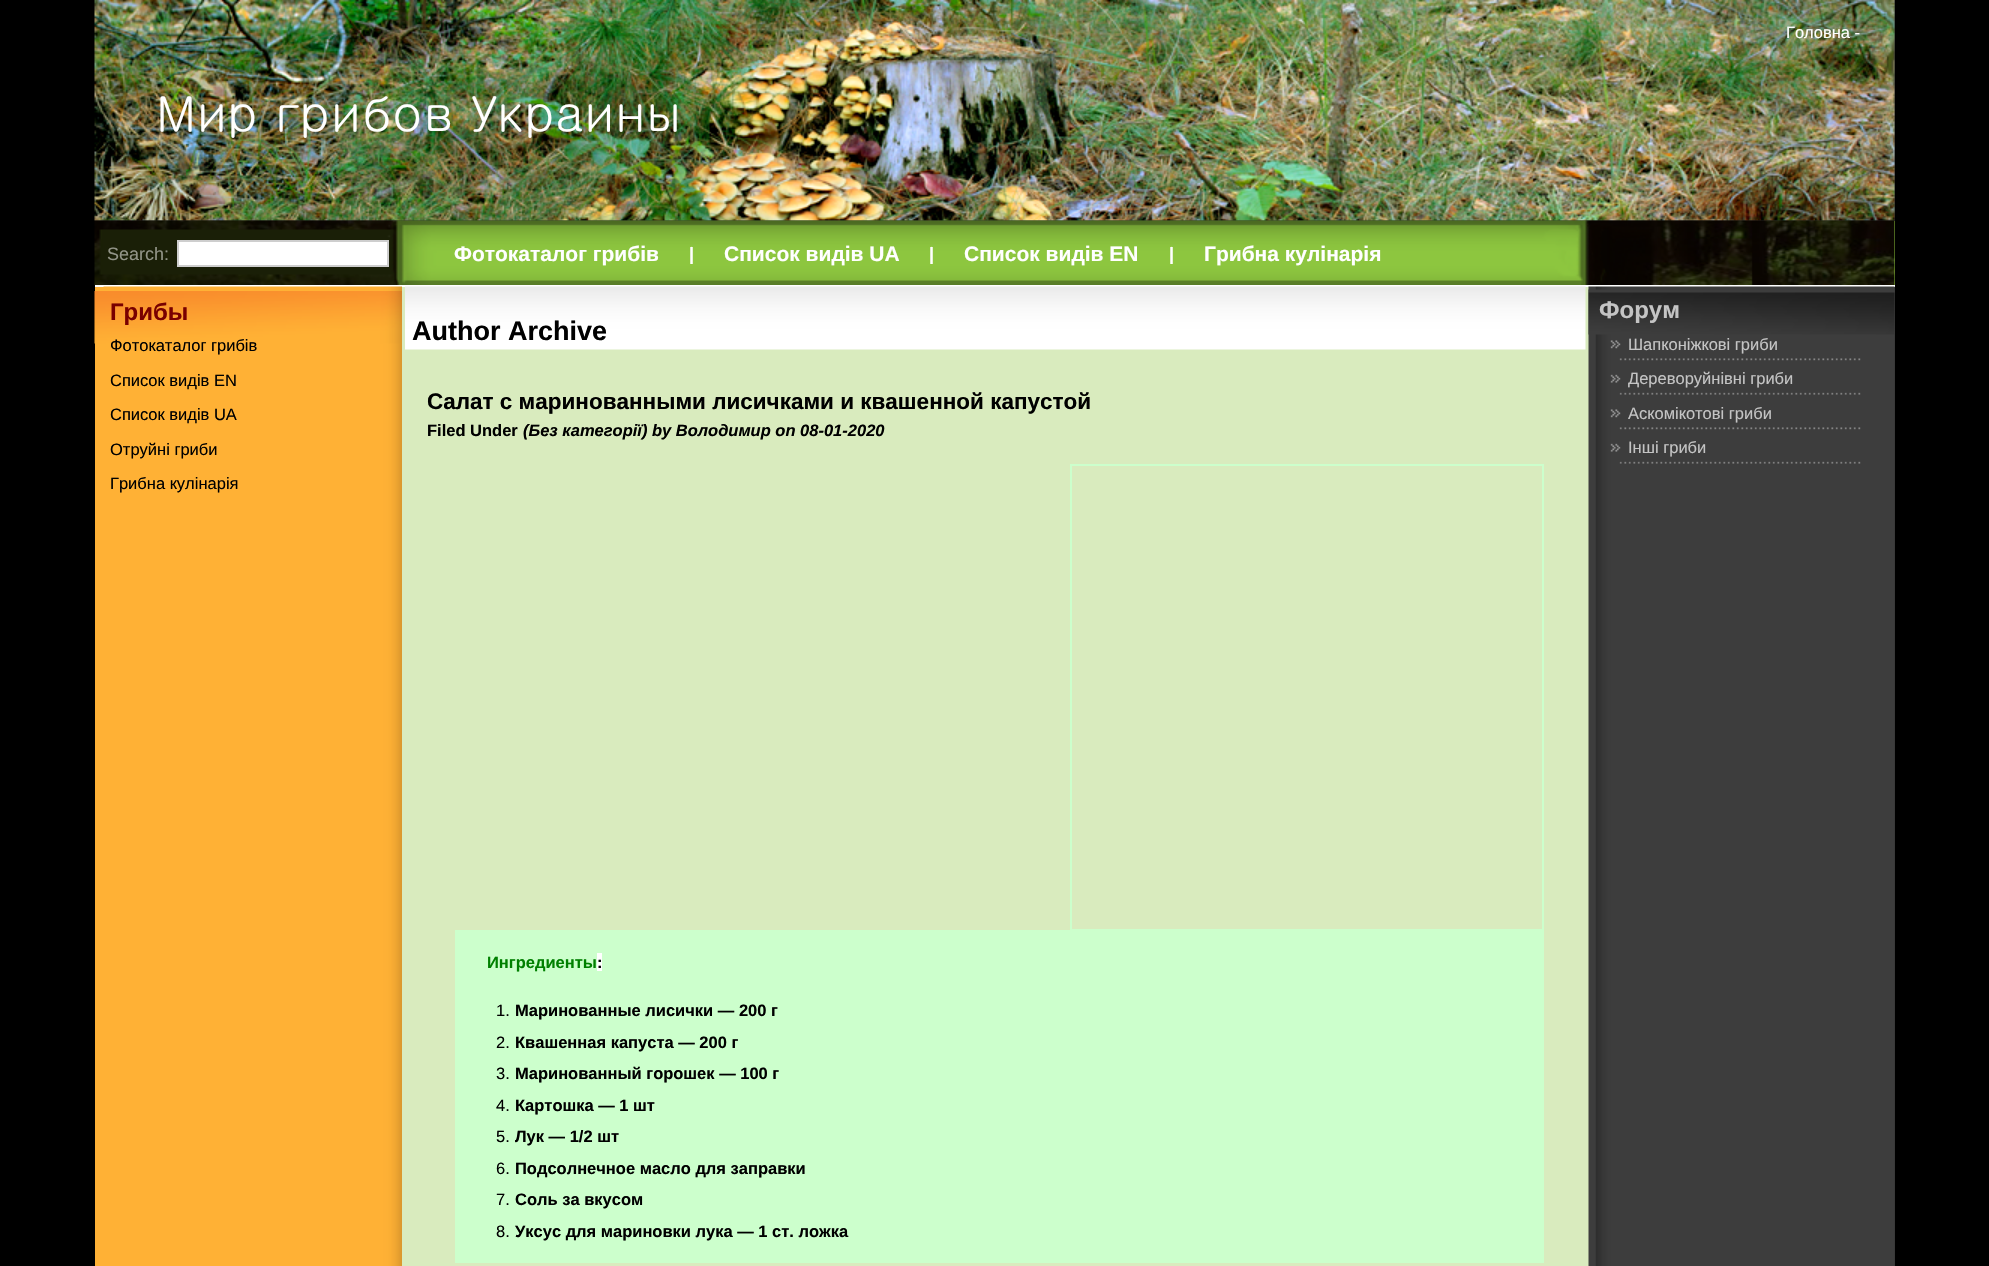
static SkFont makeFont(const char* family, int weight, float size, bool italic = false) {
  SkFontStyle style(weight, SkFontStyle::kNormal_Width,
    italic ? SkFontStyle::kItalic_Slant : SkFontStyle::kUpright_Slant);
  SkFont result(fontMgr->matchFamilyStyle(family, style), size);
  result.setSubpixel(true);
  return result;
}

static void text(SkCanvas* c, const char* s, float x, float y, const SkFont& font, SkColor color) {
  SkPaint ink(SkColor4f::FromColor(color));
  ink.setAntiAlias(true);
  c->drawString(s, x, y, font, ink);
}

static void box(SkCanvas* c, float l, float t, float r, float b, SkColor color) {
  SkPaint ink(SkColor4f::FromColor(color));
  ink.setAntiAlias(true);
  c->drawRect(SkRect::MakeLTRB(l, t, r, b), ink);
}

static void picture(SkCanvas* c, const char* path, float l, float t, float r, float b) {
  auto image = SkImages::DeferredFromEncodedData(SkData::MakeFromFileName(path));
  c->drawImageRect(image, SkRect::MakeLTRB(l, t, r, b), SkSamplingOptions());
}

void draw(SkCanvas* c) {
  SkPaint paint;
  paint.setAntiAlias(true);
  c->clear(0xff000000);
  box(c, 95, 0, 1895, 221, 0xff323232);
  picture(c, "img_01.png", 94, 0, 1895, 221);
  SkFont face1 = makeFont("Liberation Sans", 400, 16.5f);
  text(c, "Головна -", 1786, 38, face1, 0xffffffff);
  SkFont face2 = makeFont("Gulim", 400, 49.5f);
  text(c, "Мир грибов Украины", 155, 131, face2, 0xffffffff);
  box(c, 1894, 221, 1895, 285, 0xff88c239);
  picture(c, "img_02.png", 94, 220, 1895, 285);
  box(c, 95, 285, 1895, 287, 0xffffffff);
  SkFont face3 = makeFont("Liberation Sans", 400, 18);
  text(c, "Search:", 107, 260, face3, 0xff919387);
  paint.setColor(0xffffffff);
  c->drawRect(SkRect::MakeLTRB(178, 241, 388, 266), paint);
  paint.setStyle(SkPaint::kStroke_Style);
  paint.setStrokeWidth(2);
  paint.setColor(0xffcecece);
  c->drawRect(SkRect::MakeLTRB(178, 241, 388, 266), paint);
  SkFont face4 = makeFont("Liberation Sans", 700, 21);
  text(c, "Фотокаталог грибів", 454, 261, face4, 0xffffffff);
  SkFont face5 = makeFont("Liberation Sans", 700, 18);
  text(c, "|", 689, 260, face5, 0xffffffff);
  text(c, "Список видів UA", 724, 261, face4, 0xffffffff);
  text(c, "|", 929, 260, face5, 0xffffffff);
  text(c, "Список видів EN", 964, 261, face4, 0xffffffff);
  text(c, "|", 1169, 260, face5, 0xffffffff);
  text(c, "Грибна кулінарія", 1204, 261, face4, 0xffffffff);
  box(c, 95, 287, 104, 1266, 0xffffb135);
  picture(c, "img_03.png", 103, 286, 402, 1266);
  picture(c, "img_04.png", 94, 291, 402, 344);
  SkFont face6 = makeFont("Liberation Sans", 700, 24);
  text(c, "Грибы", 110, 320, face6, 0xff790000);
  text(c, "Фотокаталог грибів", 110, 351, face1, 0xff000000);
  text(c, "Список видів EN", 110, 386, face1, 0xff000000);
  text(c, "Список видів UA", 110, 420, face1, 0xff000000);
  text(c, "Отруйні гриби", 110, 455, face1, 0xff000000);
  text(c, "Грибна кулінарія", 110, 489, face1, 0xff000000);
  box(c, 402, 287, 1589, 1266, 0xffd9ebbe);
  picture(c, "img_05.png", 405, 286, 1586, 350);
  SkFont face7 = makeFont("Liberation Sans", 700, 27);
  text(c, "Author Archive", 412, 340, face7, 0xff000000);
  SkFont face8 = makeFont("Liberation Sans", 700, 22.5f);
  text(c, "Салат с маринованными лисичками и квашенной капустой", 427, 409, face8, 0xff000000);
  SkFont face9 = makeFont("Liberation Sans", 700, 16.5f);
  text(c, "Filed Under", 427, 436, face9, 0xff000000);
  SkFont face10 = makeFont("Liberation Sans", 700, 16.5f, true);
  text(c, "(Без категорії) by Володимир on 08-01-2020", 523, 436, face10, 0xff000000);
  box(c, 1070, 464, 1544, 466, 0xffccffcc);
  box(c, 1542, 464, 1544, 930, 0xffccffcc);
  box(c, 1070, 929, 1544, 930, 0xffccffcc);
  box(c, 1070, 464, 1072, 930, 0xffccffcc);
  box(c, 455, 930, 1544, 1263, 0xffccffcc);
  text(c, "Ингредиенты", 487, 968, face9, 0xff008000);
  box(c, 597, 953, 602, 971, 0xffffffff);
  text(c, ":", 597, 968, face9, 0xff000000);
  text(c, "1.", 496, 1016, face1, 0xff000000);
  text(c, "Маринованные лисички — 200 г", 515, 1016, face9, 0xff000000);
  text(c, "2.", 496, 1048, face1, 0xff000000);
  text(c, "Квашенная капуста — 200 г", 515, 1048, face9, 0xff000000);
  text(c, "3.", 496, 1079, face1, 0xff000000);
  text(c, "Маринованный горошек — 100 г", 515, 1079, face9, 0xff000000);
  text(c, "4.", 496, 1111, face1, 0xff000000);
  text(c, "Картошка — 1 шт", 515, 1111, face9, 0xff000000);
  text(c, "5.", 496, 1142, face1, 0xff000000);
  text(c, "Лук — 1/2 шт", 515, 1142, face9, 0xff000000);
  text(c, "6.", 496, 1174, face1, 0xff000000);
  text(c, "Подсолнечное масло для заправки", 515, 1174, face9, 0xff000000);
  text(c, "7.", 496, 1205, face1, 0xff000000);
  text(c, "Соль за вкусом", 515, 1205, face9, 0xff000000);
  text(c, "8.", 496, 1237, face1, 0xff000000);
  text(c, "Уксус для мариновки лука — 1 ст. ложка", 515, 1237, face9, 0xff000000);
  box(c, 1894, 287, 1895, 1266, 0xff3d3d3d);
  picture(c, "img_06.png", 1588, 286, 1895, 1266);
  picture(c, "img_07.png", 1588, 289, 1895, 335);
  text(c, "Форум", 1599, 318, face6, 0xffc4c4c4);
  picture(c, "img_08.png", 1619, 358, 1861, 361);
  picture(c, "img_09.png", 1610, 340, 1621, 349);
  text(c, "Шапконіжкові гриби", 1628, 350, face1, 0xffc4c4c4);
  picture(c, "img_10.png", 1619, 392, 1861, 395);
  picture(c, "img_11.png", 1610, 374, 1621, 383);
  text(c, "Дереворуйнівні гриби", 1628, 384, face1, 0xffc4c4c4);
  picture(c, "img_08.png", 1619, 427, 1861, 430);
  picture(c, "img_09.png", 1610, 409, 1621, 418);
  text(c, "Аскомікотові гриби", 1628, 419, face1, 0xffc4c4c4);
  picture(c, "img_10.png", 1619, 461, 1861, 464);
  picture(c, "img_11.png", 1610, 443, 1621, 452);
  text(c, "Інші гриби", 1628, 453, face1, 0xffc4c4c4);
}
